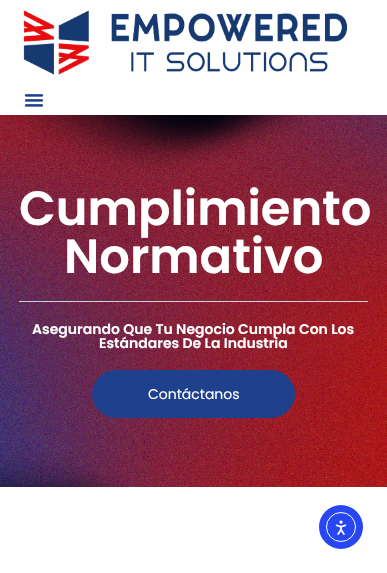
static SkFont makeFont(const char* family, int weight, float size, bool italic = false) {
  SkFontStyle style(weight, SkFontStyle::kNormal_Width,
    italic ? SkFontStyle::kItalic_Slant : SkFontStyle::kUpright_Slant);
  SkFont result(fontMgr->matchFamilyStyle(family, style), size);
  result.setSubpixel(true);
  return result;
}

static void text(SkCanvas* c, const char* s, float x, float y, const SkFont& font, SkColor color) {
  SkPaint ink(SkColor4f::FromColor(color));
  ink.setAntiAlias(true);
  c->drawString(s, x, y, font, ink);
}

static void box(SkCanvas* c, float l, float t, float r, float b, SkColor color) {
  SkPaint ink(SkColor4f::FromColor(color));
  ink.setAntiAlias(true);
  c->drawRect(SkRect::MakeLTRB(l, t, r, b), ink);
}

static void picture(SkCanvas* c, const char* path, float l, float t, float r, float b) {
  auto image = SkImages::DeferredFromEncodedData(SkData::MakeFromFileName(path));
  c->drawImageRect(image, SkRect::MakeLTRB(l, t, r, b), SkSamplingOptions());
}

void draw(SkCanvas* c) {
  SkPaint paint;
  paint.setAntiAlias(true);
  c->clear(0xffffffff);
  picture(c, "img_01.png", 23, 10, 348, 75);
  picture(c, "img_02.png", 24, 94, 44, 107);
  picture(c, "img_03.png", 0, 115, 387, 487);
  SkFont face1 = makeFont("Poppins", 600, 48);
  text(c, "Cumplimiento", 19, 225, face1, 0xffffffff);
  text(c, "Normativo", 64, 273, face1, 0xffffffff);
  box(c, 19, 301, 368, 302, 0xffc8d5dc);
  SkFont face2 = makeFont("Poppins", 600, 14);
  text(c, "Asegurando Que Tu Negocio Cumpla Con Los", 32, 334, face2, 0xffffffff);
  text(c, "Estándares De La Industria", 99, 348, face2, 0xffffffff);
  paint.setColor(0xff1f408c);
  c->drawRoundRect(SkRect::MakeLTRB(92.5f, 370.5f, 294.5f, 417.5f), 23.5f, 23.5f, paint);
  paint.setStyle(SkPaint::kStroke_Style);
  paint.setStrokeWidth(1);
  c->drawRoundRect(SkRect::MakeLTRB(92.5f, 370.5f, 294.5f, 417.5f), 23.5f, 23.5f, paint);
  SkFont face3 = makeFont("Poppins", 400, 14);
  text(c, "Contáctanos", 148, 399, face3, 0xffffffff);
  paint.setStyle(SkPaint::kFill_Style);
  paint.setColor(0xff2847f3);
  c->drawCircle(341, 527, 22, paint);
  paint.setStyle(SkPaint::kStroke_Style);
  paint.setColor(0xffffffff);
  c->drawCircle(341, 527, 14.5f, paint);
  picture(c, "img_04.png", 335, 520, 347, 535);
}
